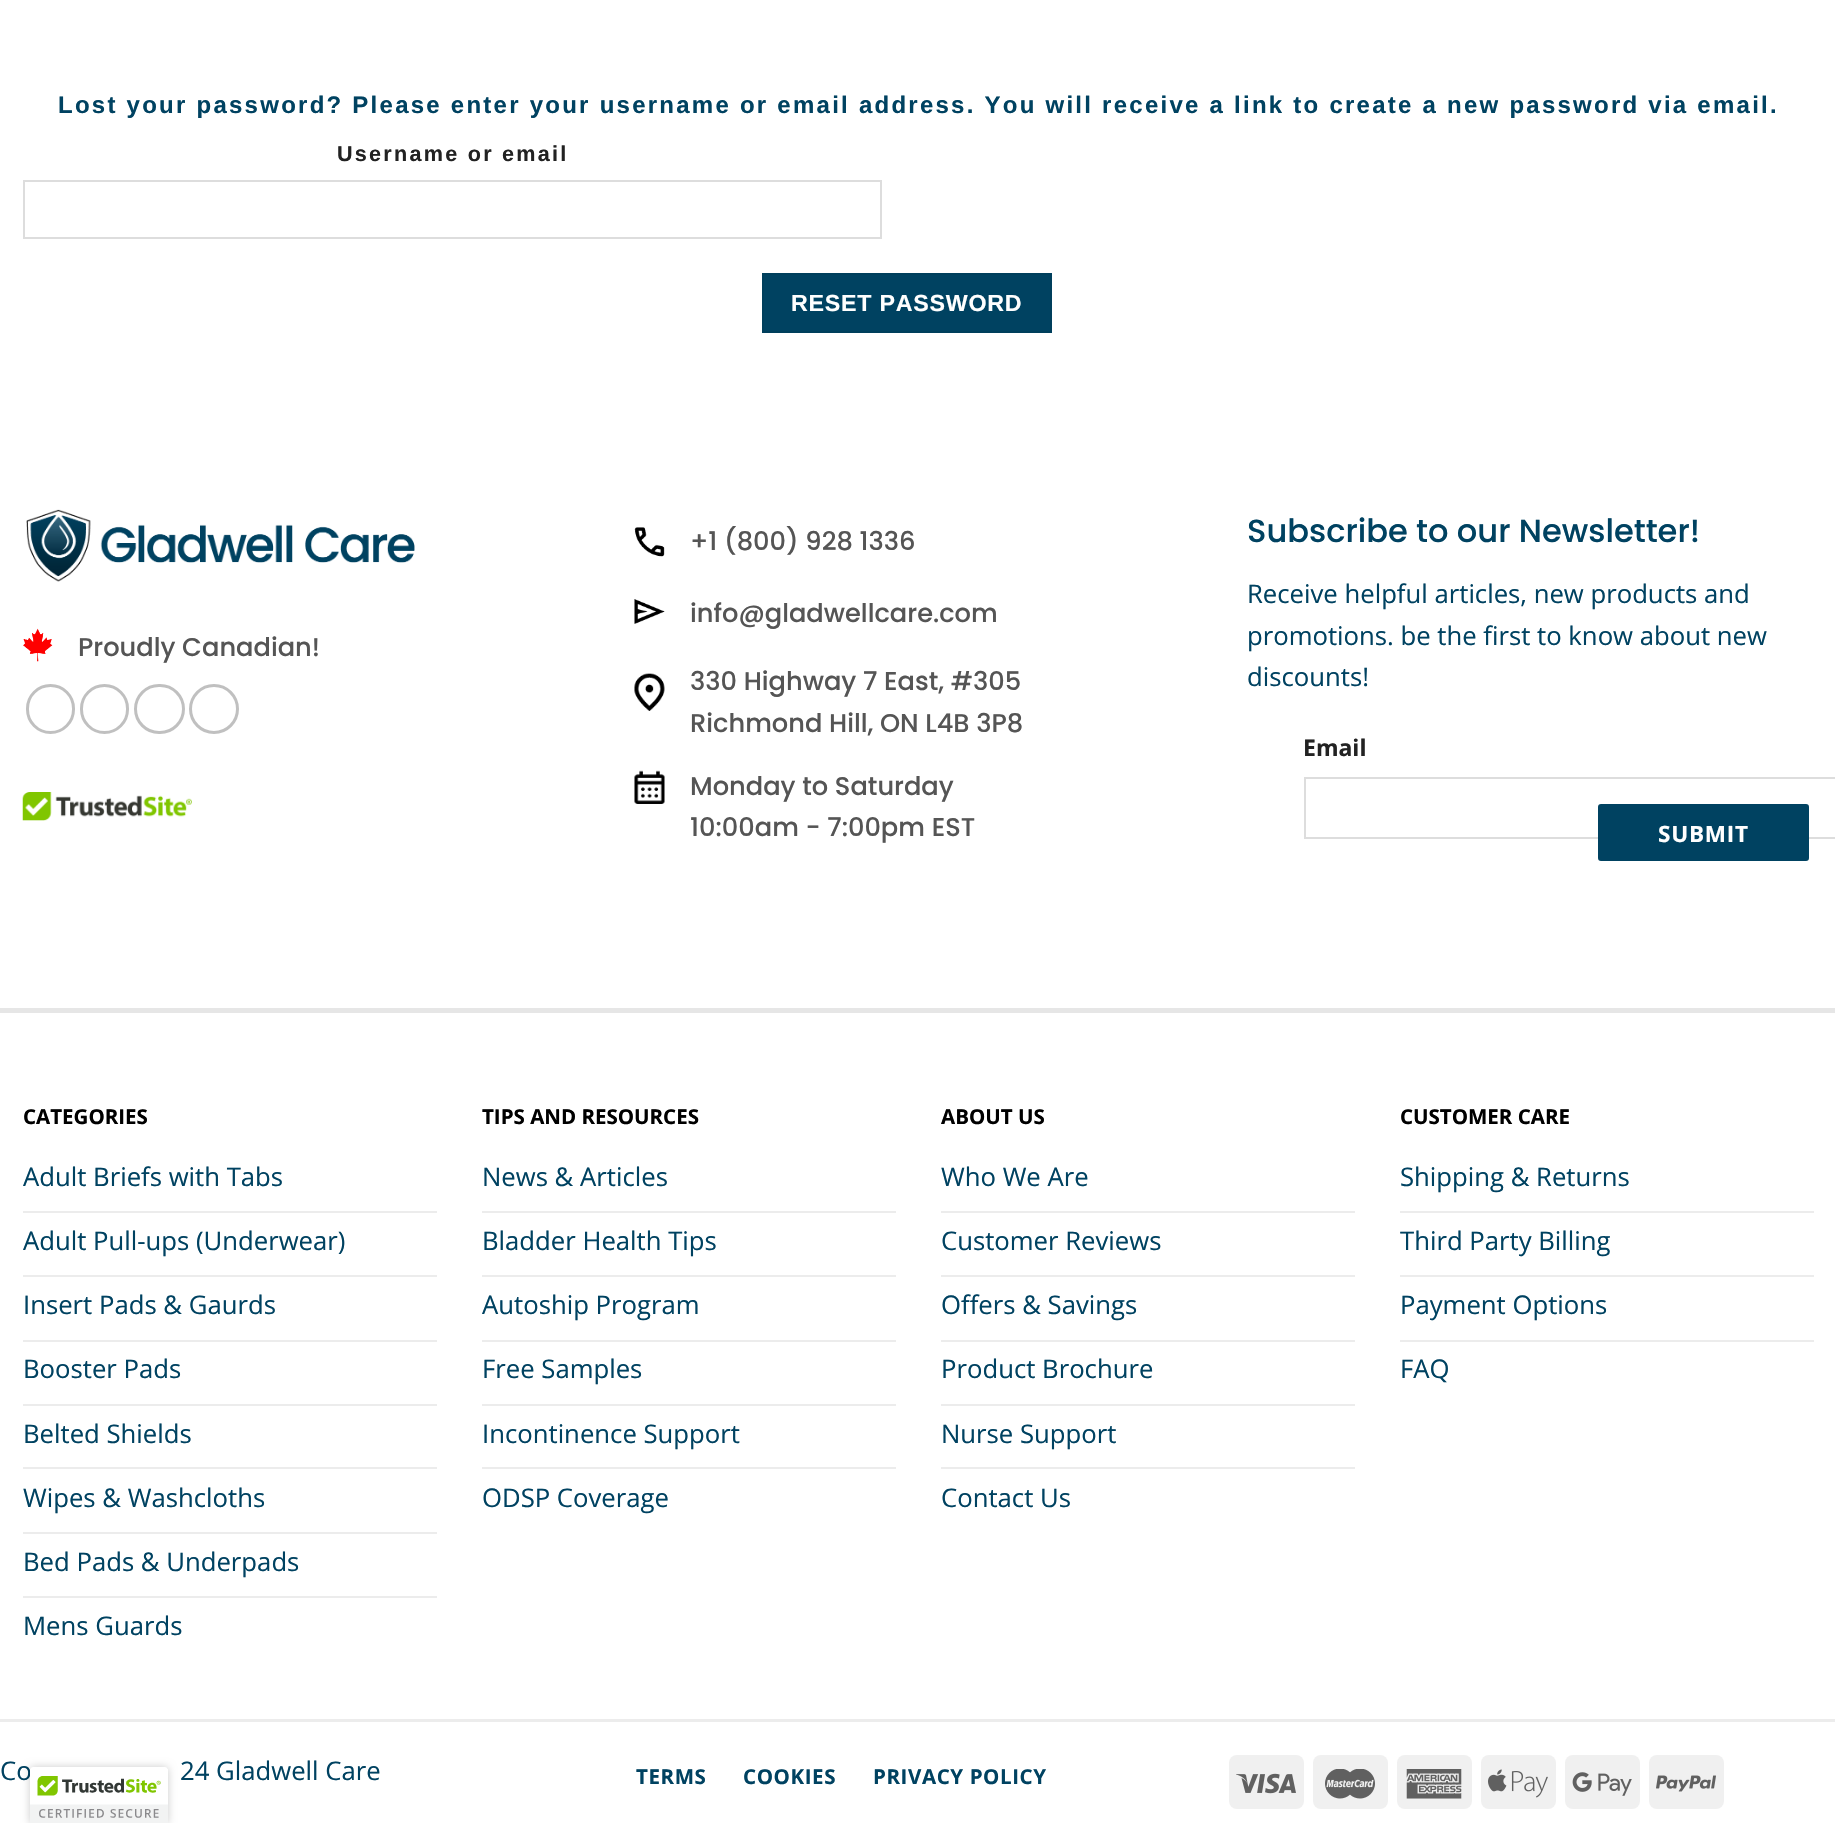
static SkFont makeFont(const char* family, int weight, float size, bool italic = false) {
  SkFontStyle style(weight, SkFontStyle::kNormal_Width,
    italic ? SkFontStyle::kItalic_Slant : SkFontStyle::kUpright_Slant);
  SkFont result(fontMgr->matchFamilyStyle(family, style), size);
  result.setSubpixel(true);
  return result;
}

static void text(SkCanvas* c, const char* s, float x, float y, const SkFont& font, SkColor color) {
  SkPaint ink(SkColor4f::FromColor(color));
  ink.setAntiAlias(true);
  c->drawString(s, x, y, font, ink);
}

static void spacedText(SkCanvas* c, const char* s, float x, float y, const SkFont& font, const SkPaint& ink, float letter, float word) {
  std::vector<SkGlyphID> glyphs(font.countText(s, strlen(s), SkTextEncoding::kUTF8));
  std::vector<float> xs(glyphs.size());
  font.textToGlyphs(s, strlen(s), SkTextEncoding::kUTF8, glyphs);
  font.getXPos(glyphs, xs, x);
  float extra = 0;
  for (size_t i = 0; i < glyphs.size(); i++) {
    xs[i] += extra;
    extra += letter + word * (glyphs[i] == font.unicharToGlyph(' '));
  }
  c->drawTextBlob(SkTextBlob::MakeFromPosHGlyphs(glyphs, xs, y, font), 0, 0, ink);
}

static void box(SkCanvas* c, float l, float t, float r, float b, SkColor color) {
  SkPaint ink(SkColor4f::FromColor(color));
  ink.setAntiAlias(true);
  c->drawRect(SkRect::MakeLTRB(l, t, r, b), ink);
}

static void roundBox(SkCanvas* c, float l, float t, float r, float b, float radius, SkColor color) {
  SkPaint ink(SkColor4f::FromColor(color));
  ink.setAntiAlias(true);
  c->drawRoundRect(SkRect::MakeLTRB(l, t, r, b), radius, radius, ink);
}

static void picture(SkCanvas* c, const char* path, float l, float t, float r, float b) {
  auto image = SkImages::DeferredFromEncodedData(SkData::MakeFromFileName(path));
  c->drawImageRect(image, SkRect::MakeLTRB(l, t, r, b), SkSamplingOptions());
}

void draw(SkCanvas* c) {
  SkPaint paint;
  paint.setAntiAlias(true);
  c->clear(0xffffffff);
  SkFont face1 = makeFont("Liberation Sans", 700, 24);
  paint.setColor(0xff004261);
  spacedText(c, "Lost your password? Please enter your username or email address. You will receive a link to create a new password via email.", 58, 113, face1, paint, 2.25f, 0);
  SkFont face2 = makeFont("Liberation Sans", 700, 21.6f);
  paint.setColor(0xff222222);
  spacedText(c, "Username or email", 337, 161, face2, paint, 2.25f, 0);
  paint.setStyle(SkPaint::kStroke_Style);
  paint.setStrokeWidth(2);
  paint.setColor(0xffdddddd);
  c->drawRect(SkRect::MakeLTRB(24, 181, 881, 238), paint);
  paint.setStyle(SkPaint::kFill_Style);
  paint.setColor(0xff004261);
  c->drawRect(SkRect::MakeLTRB(763, 274, 1051, 332), paint);
  paint.setStyle(SkPaint::kStroke_Style);
  paint.setColor(0xff003f5c);
  c->drawRect(SkRect::MakeLTRB(763, 274, 1051, 332), paint);
  SkFont face3 = makeFont("Liberation Sans", 700, 23.25f);
  paint.setStyle(SkPaint::kFill_Style);
  paint.setColor(0xffffffff);
  spacedText(c, "RESET PASSWORD", 791, 311, face3, paint, 0.75f, 0);
  picture(c, "img_01.png", 26, 509, 415, 582);
  picture(c, "img_02.png", 23, 628, 53, 662);
  SkFont face4 = makeFont("Poppins", 500, 25.7f);
  text(c, "Proudly Canadian!", 78, 656, face4, 0xff555555);
  paint.setStyle(SkPaint::kStroke_Style);
  paint.setStrokeWidth(3);
  paint.setColor(0xffc0c0c0);
  c->drawRoundRect(SkRect::MakeLTRB(27.5f, 685.5f, 73.5f, 732.5f), 23, 23, paint);
  c->drawRoundRect(SkRect::MakeLTRB(81.5f, 685.5f, 127.5f, 732.5f), 23, 23, paint);
  c->drawRoundRect(SkRect::MakeLTRB(135.5f, 685.5f, 183.5f, 732.5f), 23.5f, 23.5f, paint);
  c->drawCircle(214, 709, 23.5f, paint);
  picture(c, "img_03.png", 22, 792, 192, 821);
  picture(c, "img_04.png", 634, 527, 665, 557);
  text(c, "+1 (800) 928 1336", 690, 550, face4, 0xff555555);
  picture(c, "img_05.png", 634, 599, 665, 624);
  text(c, "info@gladwellcare.com", 690, 622, face4, 0xff555555);
  picture(c, "img_06.png", 634, 673, 665, 711);
  text(c, "330 Highway 7 East, #305", 690, 690, face4, 0xff555555);
  text(c, "Richmond Hill, ON L4B 3P8", 690, 732, face4, 0xff555555);
  picture(c, "img_07.png", 634, 770, 665, 804);
  text(c, "Monday to Saturday", 690, 795, face4, 0xff555555);
  text(c, "10:00am - 7:00pm EST", 690, 836, face4, 0xff555555);
  SkFont face5 = makeFont("Poppins", 500, 32.1f);
  text(c, "Subscribe to our Newsletter!", 1247, 542, face5, 0xff004261);
  SkFont face6 = makeFont("Open Sans", 400, 25.7f);
  text(c, "Receive helpful articles, new products and", 1247, 603, face6, 0xff004261);
  text(c, "promotions. be the first to know about new", 1247, 645, face6, 0xff004261);
  text(c, "discounts!", 1247, 686, face6, 0xff004261);
  SkFont face7 = makeFont("Open Sans", 700, 23);
  text(c, "Email", 1303, 756, face7, 0xff222222);
  paint.setStrokeWidth(2);
  paint.setColor(0xffdddddd);
  c->drawRect(SkRect::MakeLTRB(1305, 778, 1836, 838), paint);
  paint.setStyle(SkPaint::kFill_Style);
  paint.setColor(0xff004261);
  c->drawRoundRect(SkRect::MakeLTRB(1599, 805, 1808, 860), 2, 2, paint);
  paint.setStyle(SkPaint::kStroke_Style);
  c->drawRoundRect(SkRect::MakeLTRB(1599, 805, 1808, 860), 2, 2, paint);
  SkFont face8 = makeFont("Open Sans", 700, 22.5f);
  paint.setStyle(SkPaint::kFill_Style);
  paint.setColor(0xffffffff);
  spacedText(c, "SUBMIT", 1658, 842, face8, paint, 0.75f, 0);
  box(c, 0, 1008, 1835, 1013, 0xffe6e6e6);
  SkFont face9 = makeFont("Open Sans", 700, 20.5f);
  text(c, "CATEGORIES", 23, 1124, face9, 0xff000000);
  box(c, 23, 1211, 437, 1213, 0xffececec);
  text(c, "Adult Briefs with Tabs", 23, 1186, face6, 0xff004261);
  box(c, 23, 1275, 437, 1277, 0xffececec);
  text(c, "Adult Pull-ups (Underwear)", 23, 1250, face6, 0xff004261);
  box(c, 23, 1340, 437, 1342, 0xffececec);
  text(c, "Insert Pads & Gaurds", 23, 1314, face6, 0xff004261);
  box(c, 23, 1404, 437, 1406, 0xffececec);
  text(c, "Booster Pads", 23, 1378, face6, 0xff004261);
  box(c, 23, 1467, 437, 1469, 0xffececec);
  text(c, "Belted Shields", 23, 1443, face6, 0xff004261);
  box(c, 23, 1532, 437, 1534, 0xffececec);
  text(c, "Wipes & Washcloths", 23, 1507, face6, 0xff004261);
  box(c, 23, 1596, 437, 1598, 0xffececec);
  text(c, "Bed Pads & Underpads", 23, 1571, face6, 0xff004261);
  text(c, "Mens Guards", 23, 1635, face6, 0xff004261);
  text(c, "TIPS AND RESOURCES", 482, 1124, face9, 0xff000000);
  box(c, 482, 1211, 896, 1213, 0xffececec);
  text(c, "News & Articles", 482, 1186, face6, 0xff004261);
  box(c, 482, 1275, 896, 1277, 0xffececec);
  text(c, "Bladder Health Tips", 482, 1250, face6, 0xff004261);
  box(c, 482, 1340, 896, 1342, 0xffececec);
  text(c, "Autoship Program", 482, 1314, face6, 0xff004261);
  box(c, 482, 1404, 896, 1406, 0xffececec);
  text(c, "Free Samples", 482, 1378, face6, 0xff004261);
  box(c, 482, 1467, 896, 1469, 0xffececec);
  text(c, "Incontinence Support", 482, 1443, face6, 0xff004261);
  text(c, "ODSP Coverage", 482, 1507, face6, 0xff004261);
  text(c, "ABOUT US", 941, 1124, face9, 0xff000000);
  box(c, 941, 1211, 1355, 1213, 0xffececec);
  text(c, "Who We Are", 941, 1186, face6, 0xff004261);
  box(c, 941, 1275, 1355, 1277, 0xffececec);
  text(c, "Customer Reviews", 941, 1250, face6, 0xff004261);
  box(c, 941, 1340, 1355, 1342, 0xffececec);
  text(c, "Offers & Savings", 941, 1314, face6, 0xff004261);
  box(c, 941, 1404, 1355, 1406, 0xffececec);
  text(c, "Product Brochure", 941, 1378, face6, 0xff004261);
  box(c, 941, 1467, 1355, 1469, 0xffececec);
  text(c, "Nurse Support", 941, 1443, face6, 0xff004261);
  text(c, "Contact Us", 941, 1507, face6, 0xff004261);
  text(c, "CUSTOMER CARE", 1400, 1124, face9, 0xff000000);
  box(c, 1400, 1211, 1814, 1213, 0xffececec);
  text(c, "Shipping & Returns", 1400, 1186, face6, 0xff004261);
  box(c, 1400, 1275, 1814, 1277, 0xffececec);
  text(c, "Third Party Billing", 1400, 1250, face6, 0xff004261);
  box(c, 1400, 1340, 1814, 1342, 0xffececec);
  text(c, "Payment Options", 1400, 1314, face6, 0xff004261);
  text(c, "FAQ", 1400, 1378, face6, 0xff004261);
  box(c, 0, 1719, 1835, 1722, 0xffececec);
  text(c, "Co", 0, 1780, face6, 0xff004261);
  text(c, "24 Gladwell Care", 180, 1780, face6, 0xff004261);
  paint.setColor(0xff004261);
  spacedText(c, "TERMS", 636, 1784, face9, paint, 0.6f, 0);
  spacedText(c, "COOKIES", 743, 1784, face9, paint, 0.6f, 0);
  spacedText(c, "PRIVACY POLICY", 873, 1784, face9, paint, 0.6f, 0);
  roundBox(c, 1229, 1755, 1304, 1809, 8, 0xfff0f0f0);
  picture(c, "img_08.png", 1236, 1773, 1296, 1794);
  roundBox(c, 1313, 1755, 1388, 1809, 8, 0xfff0f0f0);
  picture(c, "img_09.png", 1325, 1769, 1375, 1799);
  roundBox(c, 1397, 1755, 1472, 1809, 8, 0xfff0f0f0);
  picture(c, "img_10.png", 1406, 1769, 1462, 1799);
  roundBox(c, 1481, 1755, 1556, 1809, 8, 0xfff0f0f0);
  picture(c, "img_11.png", 1488, 1769, 1548, 1798);
  roundBox(c, 1565, 1755, 1640, 1809, 8, 0xfff0f0f0);
  picture(c, "img_12.png", 1572, 1772, 1632, 1796);
  roundBox(c, 1649, 1755, 1724, 1809, 8, 0xfff0f0f0);
  picture(c, "img_13.png", 1656, 1775, 1716, 1792);
  paint.setColor(0x33000000);
  paint.setMaskFilter(SkMaskFilter::MakeBlur(kNormal_SkBlurStyle, 4));
  c->drawRoundRect(SkRect::MakeLTRB(30, 1767, 168, 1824), 3, 3, paint);
  paint.setMaskFilter(nullptr);
  paint.setColor(0xffffffff);
  c->drawPath(SkPathBuilder().moveTo(33, 1767).lineTo(165, 1767).cubicTo(166.5f, 1767, 168, 1768.5f, 168, 1770).lineTo(168, 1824).lineTo(30, 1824).lineTo(30, 1770).cubicTo(30, 1768.5f, 31.5f, 1767, 33, 1767).close().detach(), paint);
  picture(c, "img_14.png", 30, 1768, 168, 1823);
}
